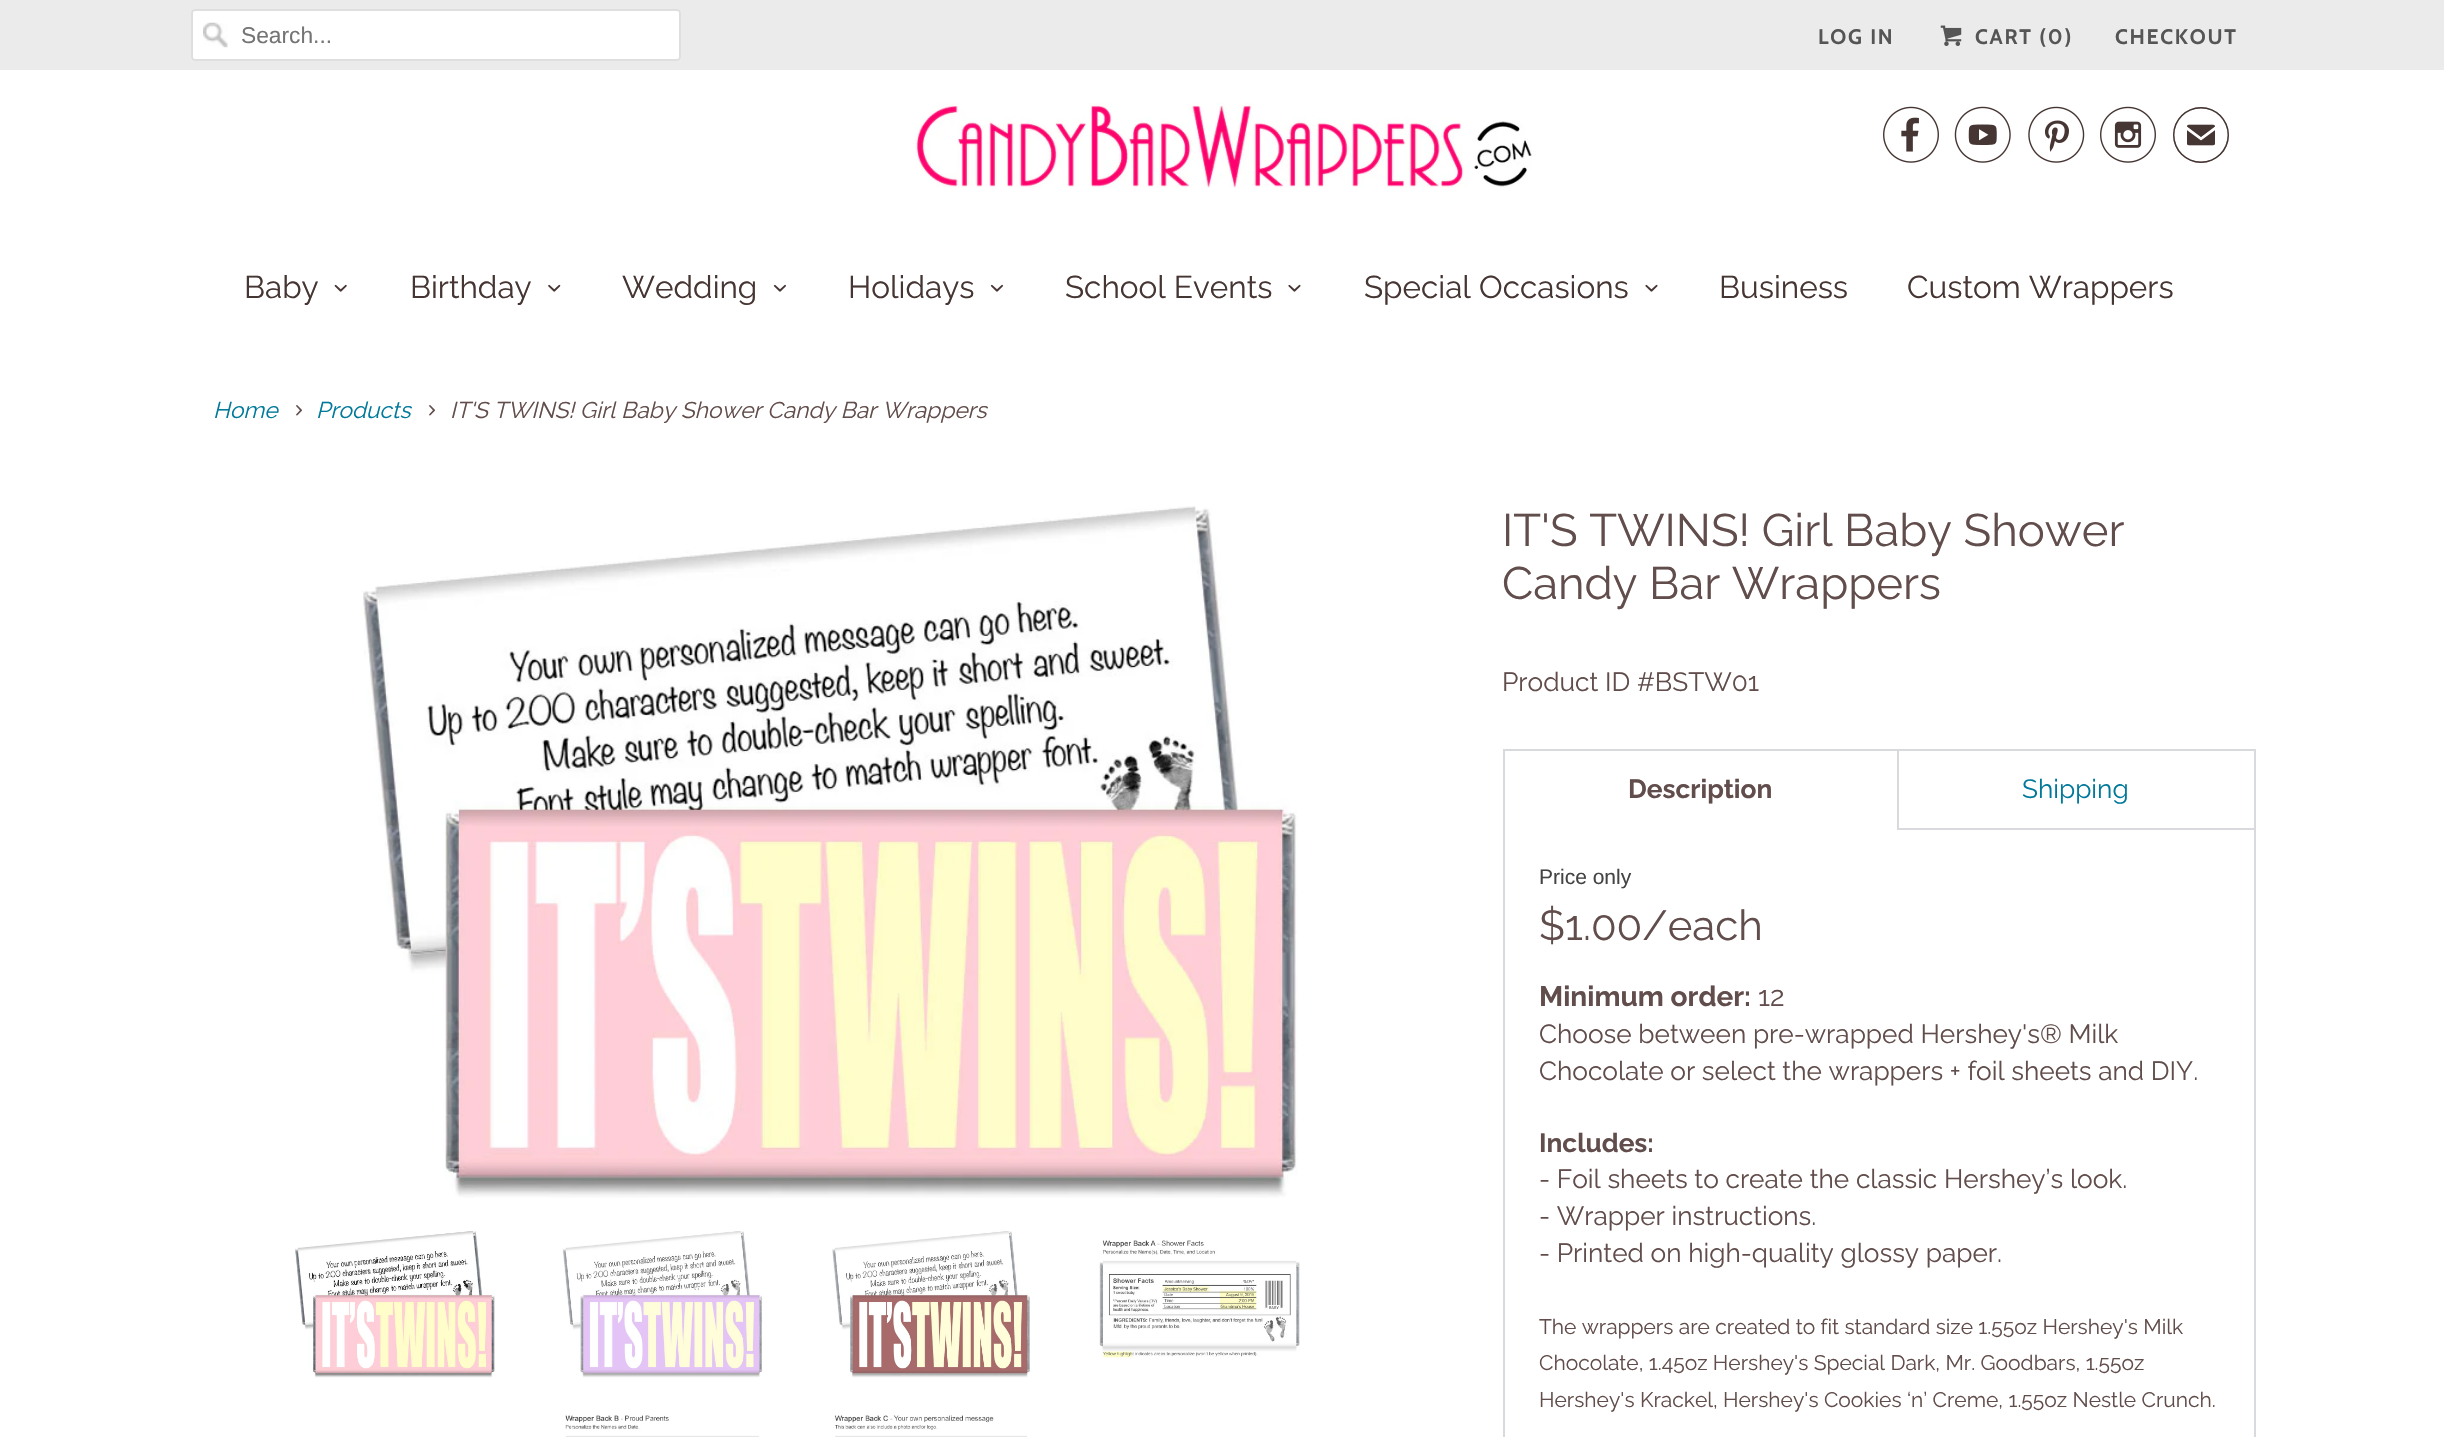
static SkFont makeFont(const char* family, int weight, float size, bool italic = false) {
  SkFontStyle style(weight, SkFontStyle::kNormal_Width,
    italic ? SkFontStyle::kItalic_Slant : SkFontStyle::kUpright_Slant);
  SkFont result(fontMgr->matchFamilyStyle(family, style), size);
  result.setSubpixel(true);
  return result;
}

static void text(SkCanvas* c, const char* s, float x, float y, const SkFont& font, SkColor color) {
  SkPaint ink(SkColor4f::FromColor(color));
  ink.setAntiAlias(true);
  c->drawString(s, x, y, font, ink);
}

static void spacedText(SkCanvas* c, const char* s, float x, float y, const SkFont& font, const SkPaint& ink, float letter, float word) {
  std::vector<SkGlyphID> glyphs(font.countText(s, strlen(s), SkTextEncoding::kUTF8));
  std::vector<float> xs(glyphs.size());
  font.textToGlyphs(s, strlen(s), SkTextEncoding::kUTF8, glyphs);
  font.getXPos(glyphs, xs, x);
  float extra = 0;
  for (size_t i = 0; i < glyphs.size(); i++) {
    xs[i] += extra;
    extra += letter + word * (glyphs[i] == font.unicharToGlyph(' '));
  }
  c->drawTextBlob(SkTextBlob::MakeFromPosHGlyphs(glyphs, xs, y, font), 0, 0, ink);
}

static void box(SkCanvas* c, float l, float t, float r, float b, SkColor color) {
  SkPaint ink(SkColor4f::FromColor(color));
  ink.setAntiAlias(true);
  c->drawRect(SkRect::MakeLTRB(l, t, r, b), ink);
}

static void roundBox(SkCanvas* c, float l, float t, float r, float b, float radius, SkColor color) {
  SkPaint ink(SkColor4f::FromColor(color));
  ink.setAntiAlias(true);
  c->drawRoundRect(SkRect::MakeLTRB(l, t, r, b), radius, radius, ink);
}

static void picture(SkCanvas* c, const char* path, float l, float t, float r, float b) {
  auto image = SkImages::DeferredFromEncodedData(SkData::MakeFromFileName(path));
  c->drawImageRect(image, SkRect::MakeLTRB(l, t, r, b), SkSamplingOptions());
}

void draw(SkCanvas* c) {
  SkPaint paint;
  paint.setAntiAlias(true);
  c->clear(0xffffffff);
  box(c, 0, 0, 2444, 70, 0xffebebeb);
  roundBox(c, 191, 9, 681, 61, 4, 0xffffffff);
  picture(c, "img_01.png", 203, 22, 228, 48);
  paint.setStyle(SkPaint::kStroke_Style);
  paint.setStrokeWidth(2);
  paint.setColor(0xffdfdfdf);
  c->drawRoundRect(SkRect::MakeLTRB(192, 10, 680, 60), 3, 3, paint);
  SkFont face1 = makeFont("Liberation Sans", 400, 22.75f);
  text(c, "Search...", 241, 43, face1, 0xff757575);
  SkFont face2 = makeFont("Cabin", 700, 21);
  paint.setStyle(SkPaint::kFill_Style);
  paint.setColor(0xff555555);
  spacedText(c, "LOG IN", 1818, 44, face2, paint, 1.75f, 0);
  picture(c, "img_02.png", 1940, 25, 1962, 46);
  spacedText(c, "CART (0)", 1975, 44, face2, paint, 1.75f, 0);
  spacedText(c, "CHECKOUT", 2115, 44, face2, paint, 1.75f, 0);
  picture(c, "img_03.png", 915, 103, 1532, 188);
  picture(c, "img_04.png", 1883, 106, 1939, 163);
  picture(c, "img_05.png", 1954, 106, 2011, 163);
  picture(c, "img_06.png", 2028, 106, 2085, 163);
  picture(c, "img_07.png", 2100, 106, 2156, 163);
  SkFont face3 = makeFont("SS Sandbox", 400, 56);
  text(c, "✉", 2173, 163, face3, 0xff453533);
  SkFont face4 = makeFont("Raleway", 400, 31.5f);
  text(c, "Baby", 244, 298, face4, 0xff453533);
  picture(c, "img_08.png", 334, 284, 347, 292);
  text(c, "Birthday", 410, 298, face4, 0xff453533);
  picture(c, "img_09.png", 548, 284, 561, 292);
  text(c, "Wedding", 622, 298, face4, 0xff453533);
  picture(c, "img_10.png", 773, 284, 786, 292);
  text(c, "Holidays", 848, 298, face4, 0xff453533);
  picture(c, "img_10.png", 990, 284, 1003, 292);
  text(c, "School Events", 1065, 298, face4, 0xff453533);
  picture(c, "img_11.png", 1288, 284, 1301, 292);
  text(c, "Special Occasions", 1364, 298, face4, 0xff453533);
  picture(c, "img_11.png", 1645, 284, 1658, 292);
  text(c, "Business", 1719, 298, face4, 0xff453533);
  text(c, "Custom Wrappers", 1907, 298, face4, 0xff453533);
  SkFont face5 = makeFont("Raleway", 400, 22.75f, true);
  text(c, "Home", 213, 418, face5, 0xff01799b);
  picture(c, "img_12.png", 296, 405, 302, 416);
  text(c, "Products", 316, 418, face5, 0xff01799b);
  picture(c, "img_12.png", 429, 405, 435, 416);
  text(c, "IT'S TWINS! Girl Baby Shower Candy Bar Wrappers", 450, 418, face5, 0xff614d4b);
  picture(c, "img_13.png", 362, 506, 1298, 1198);
  picture(c, "img_14.png", 295, 1231, 495, 1378);
  picture(c, "img_15.png", 562, 1231, 763, 1378);
  picture(c, "img_16.png", 832, 1231, 1030, 1378);
  picture(c, "img_17.png", 1099, 1240, 1300, 1358);
  picture(c, "img_18.png", 565, 1415, 759, 1437);
  picture(c, "img_19.png", 834, 1415, 1027, 1437);
  SkFont face6 = makeFont("Raleway", 400, 45.5f);
  text(c, "IT'S TWINS! Girl Baby Shower", 1502, 546, face6, 0xff614d4b);
  text(c, "Candy Bar Wrappers", 1502, 599, face6, 0xff614d4b);
  SkFont face7 = makeFont("Raleway", 400, 26.25f);
  text(c, "Product ID #BSTW01", 1502, 691, face7, 0xff614d4b);
  paint.setStyle(SkPaint::kStroke_Style);
  paint.setColor(0xffd8dadd);
  c->drawRect(SkRect::MakeLTRB(1504, 829, 2255, 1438), paint);
  box(c, 1505, 828, 1897, 830, 0xffffffff);
  box(c, 1503, 749, 1899, 751, 0xffd8dadd);
  box(c, 1897, 749, 1899, 830, 0xffd8dadd);
  box(c, 1503, 749, 1505, 830, 0xffd8dadd);
  SkFont face8 = makeFont("Raleway", 700, 26.25f);
  text(c, "Description", 1628, 798, face8, 0xff614d4b);
  box(c, 1897, 749, 2256, 751, 0xffd8dadd);
  box(c, 2254, 749, 2256, 830, 0xffd8dadd);
  text(c, "Shipping", 2022, 798, face7, 0xff01799b);
  SkFont face9 = makeFont("Liberation Sans", 400, 21);
  text(c, "Price only", 1539, 884, face9, 0xff444444);
  SkFont face10 = makeFont("Raleway", 400, 42);
  text(c, "$1.00/each", 1539, 940, face10, 0xff614d4b);
  SkFont face11 = makeFont("Raleway", 700, 28);
  text(c, "Minimum order:", 1539, 1006, face11, 0xff614d4b);
  SkFont face12 = makeFont("Raleway", 400, 28);
  text(c, "12", 1758, 1006, face12, 0xff614d4b);
  text(c, "Choose between pre-wrapped Hershey's® Milk", 1539, 1043, face7, 0xff614d4b);
  text(c, "Chocolate or select the wrappers + foil sheets and DIY.", 1539, 1080, face7, 0xff614d4b);
  text(c, "Includes:", 1539, 1152, face8, 0xff614d4b);
  text(c, "- Foil sheets to create the classic Hershey’s look.", 1539, 1188, face7, 0xff614d4b);
  text(c, "- Wrapper instructions.", 1539, 1225, face7, 0xff614d4b);
  text(c, "- Printed on high-quality glossy paper.", 1539, 1262, face7, 0xff614d4b);
  SkFont face13 = makeFont("Raleway", 400, 21);
  text(c, "The wrappers are created to fit standard size 1.55oz Hershey's Milk", 1539, 1334, face13, 0xff614d4b);
  text(c, "Chocolate, 1.45oz Hershey's Special Dark, Mr. Goodbars, 1.55oz", 1539, 1370, face13, 0xff614d4b);
  text(c, "Hershey's Krackel, Hershey's Cookies ‘n’ Creme, 1.55oz Nestle Crunch.", 1539, 1407, face13, 0xff614d4b);
}
